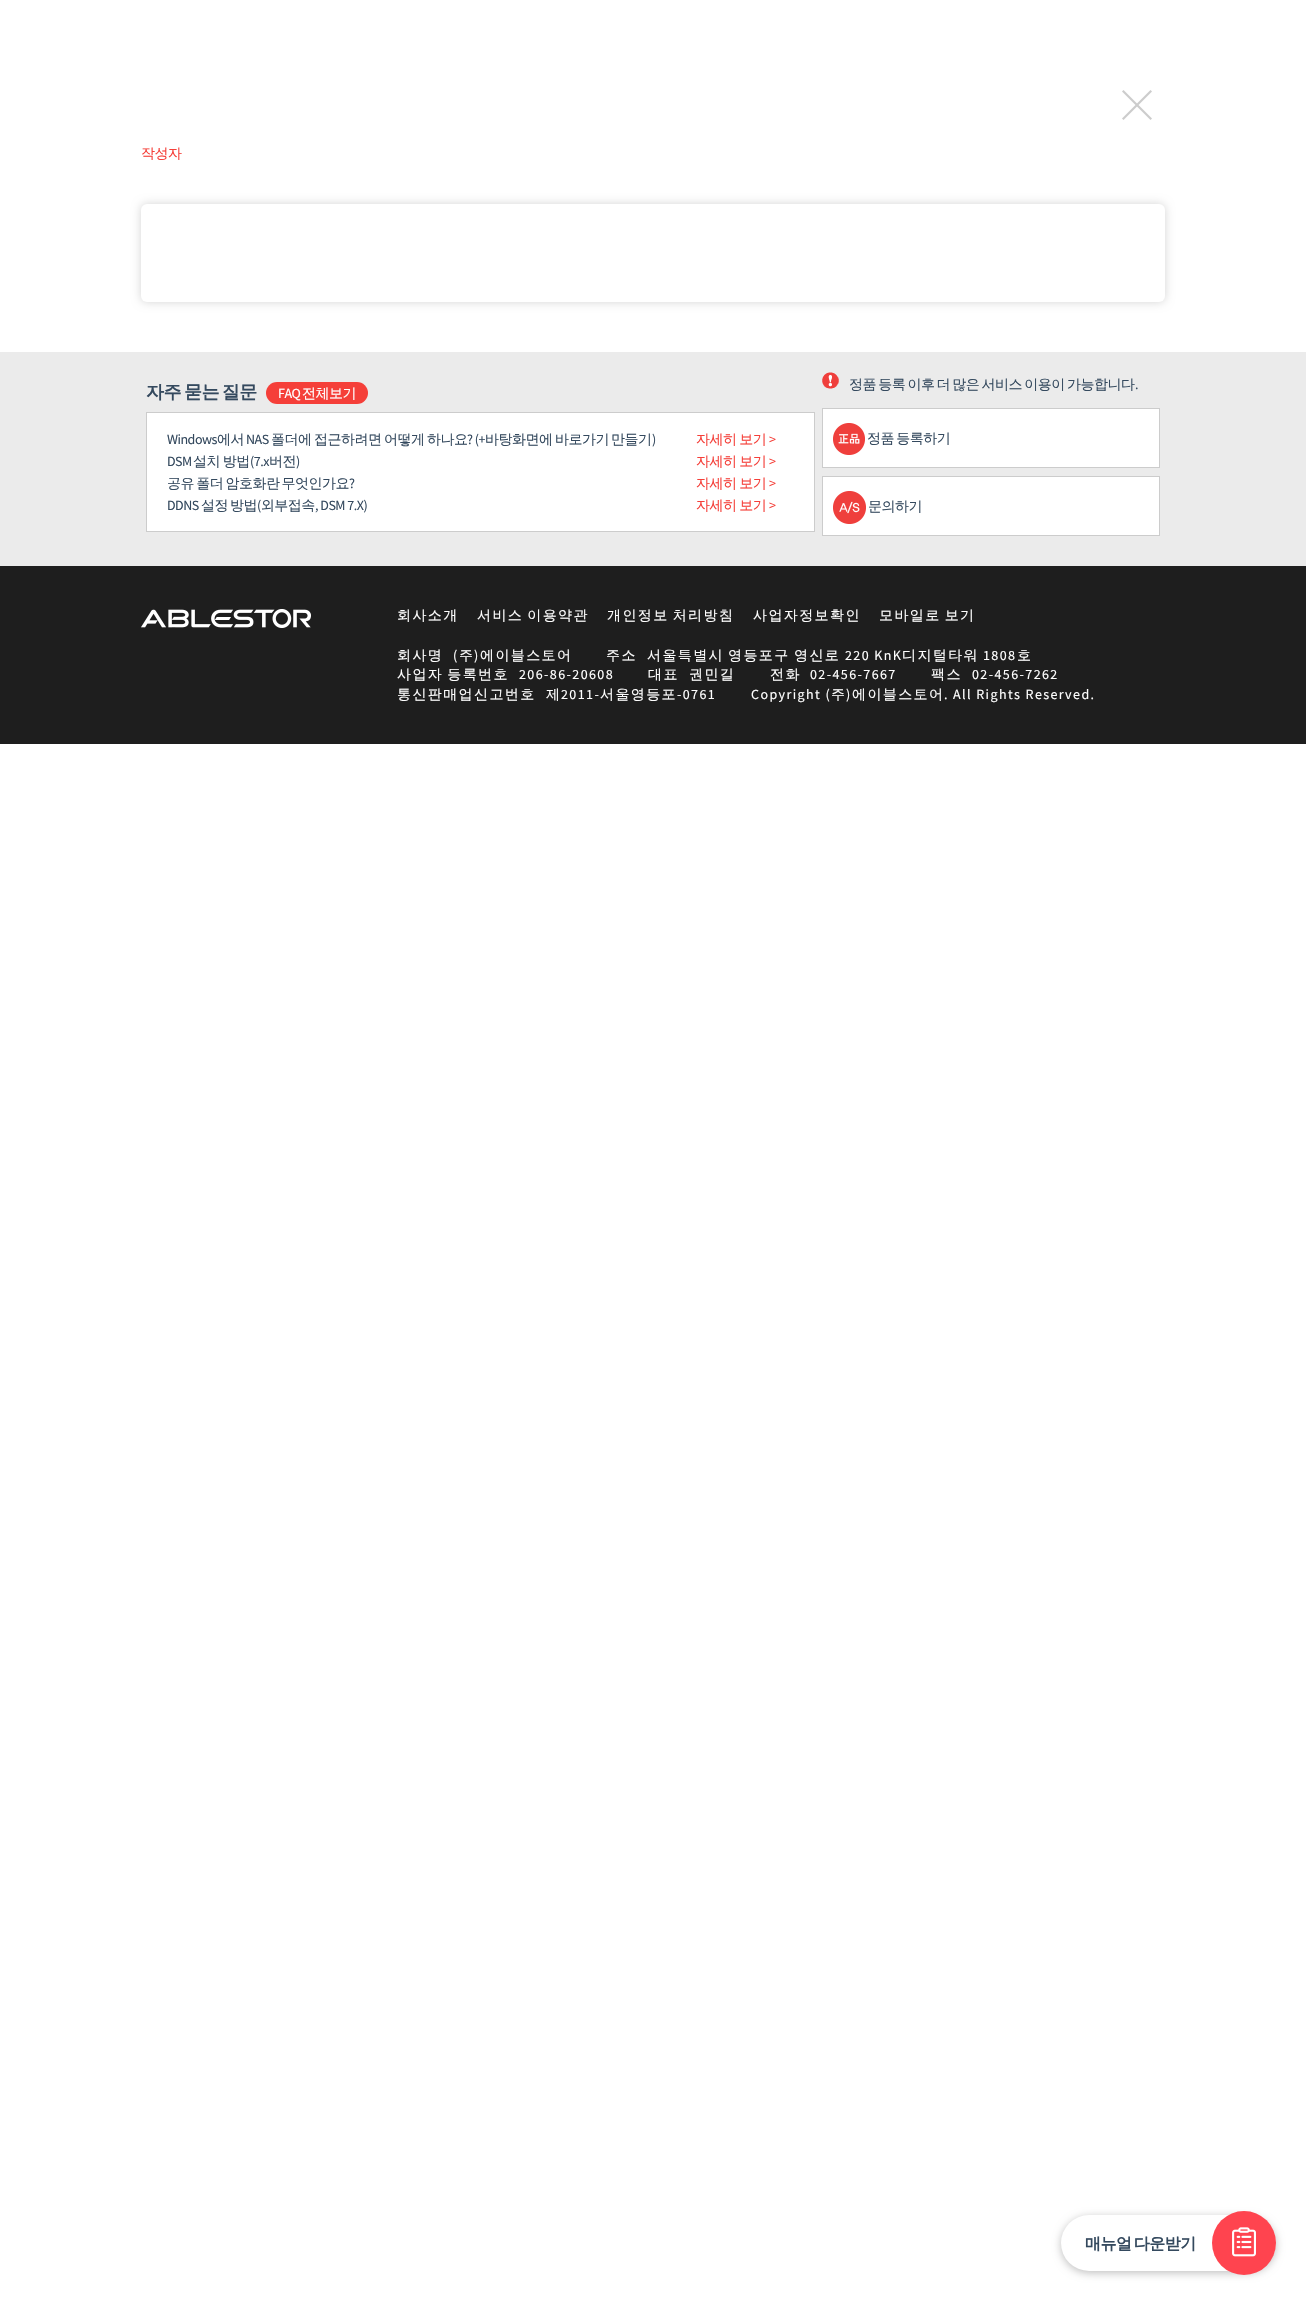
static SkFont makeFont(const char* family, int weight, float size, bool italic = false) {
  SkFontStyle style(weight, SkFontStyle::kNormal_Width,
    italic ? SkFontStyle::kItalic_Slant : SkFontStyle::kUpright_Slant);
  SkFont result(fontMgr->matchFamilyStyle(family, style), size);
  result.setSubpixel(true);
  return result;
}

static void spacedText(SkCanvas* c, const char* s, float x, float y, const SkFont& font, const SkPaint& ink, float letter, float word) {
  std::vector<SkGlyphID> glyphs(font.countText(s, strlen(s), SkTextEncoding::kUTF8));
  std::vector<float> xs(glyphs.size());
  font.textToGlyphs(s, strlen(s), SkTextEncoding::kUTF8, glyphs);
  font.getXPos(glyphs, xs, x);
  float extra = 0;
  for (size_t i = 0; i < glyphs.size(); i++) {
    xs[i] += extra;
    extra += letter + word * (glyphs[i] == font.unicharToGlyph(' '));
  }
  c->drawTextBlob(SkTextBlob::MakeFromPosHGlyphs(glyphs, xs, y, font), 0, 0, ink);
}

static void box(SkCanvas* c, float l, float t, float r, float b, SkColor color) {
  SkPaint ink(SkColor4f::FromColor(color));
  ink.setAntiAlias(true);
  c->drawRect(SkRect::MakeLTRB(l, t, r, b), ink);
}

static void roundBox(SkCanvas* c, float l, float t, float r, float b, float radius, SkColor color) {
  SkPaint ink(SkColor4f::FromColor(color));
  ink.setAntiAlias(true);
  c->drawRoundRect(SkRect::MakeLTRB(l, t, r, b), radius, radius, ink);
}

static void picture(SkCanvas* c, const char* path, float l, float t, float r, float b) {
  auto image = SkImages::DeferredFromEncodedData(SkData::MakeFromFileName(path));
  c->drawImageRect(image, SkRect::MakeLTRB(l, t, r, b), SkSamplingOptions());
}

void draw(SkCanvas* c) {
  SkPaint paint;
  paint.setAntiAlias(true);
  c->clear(0xffffffff);
  paint.setColor(0xffcccccc);
  c->drawPath(SkPathBuilder().moveTo(1123.5f, 90).lineTo(1152, 118.5f).lineTo(1150.5f, 120).lineTo(1122, 91.5f).close().detach(), paint);
  c->drawPath(SkPathBuilder().moveTo(1122, 118.5f).lineTo(1150.5f, 90).lineTo(1152, 91.5f).lineTo(1123.5f, 120).close().detach(), paint);
  SkFont face1 = makeFont("WenQuanYi Zen Hei", 500, 14);
  paint.setColor(0xfff53f39);
  spacedText(c, "작성자", 141, 158, face1, paint, -0.5f, 0);
  paint.setColor(0x2b000000);
  paint.setMaskFilter(SkMaskFilter::MakeBlur(kNormal_SkBlurStyle, 5));
  c->drawRoundRect(SkRect::MakeLTRB(141, 204, 1165, 302), 6, 6, paint);
  paint.setMaskFilter(nullptr);
  roundBox(c, 141, 204, 1165, 302, 6, 0xffffffff);
  box(c, 0, 352, 1306, 566, 0xffebebeb);
  SkFont face2 = makeFont("WenQuanYi Zen Hei", 700, 18);
  paint.setColor(0xff34495e);
  spacedText(c, "자주 묻는 질문", 146, 398, face2, paint, -0.5f, -2);
  roundBox(c, 266, 382, 368, 404, 11, 0xfff53f39);
  SkFont face3 = makeFont("Source Sans Pro", 400, 14);
  paint.setColor(0xffffffff);
  spacedText(c, "FAQ", 278, 398, face3, paint, -0.5f, 0);
  spacedText(c, "전체보기", 302, 398, face1, paint, -0.5f, 0);
  c->drawRect(SkRect::MakeLTRB(146.5f, 412.5f, 814.5f, 531.5f), paint);
  paint.setStyle(SkPaint::kStroke_Style);
  paint.setStrokeWidth(1);
  paint.setColor(0xffcccccc);
  c->drawRect(SkRect::MakeLTRB(146.5f, 412.5f, 814.5f, 531.5f), paint);
  paint.setStyle(SkPaint::kFill_Style);
  paint.setColor(0xff34495e);
  spacedText(c, "Windows", 167, 444, face3, paint, -0.5f, 0);
  spacedText(c, "에서", 217, 444, face1, paint, -0.5f, 0);
  spacedText(c, "NAS", 246, 444, face3, paint, -0.5f, 0);
  spacedText(c, "폴더에", 271, 444, face1, paint, -0.5f, 0);
  spacedText(c, "접근하려면", 314, 444, face1, paint, -0.5f, 0);
  spacedText(c, "어떻게", 384, 444, face1, paint, -0.5f, 0);
  spacedText(c, "하나요", 427, 444, face1, paint, -0.5f, 0);
  spacedText(c, "? (+", 467, 444, face3, paint, -0.5f, 0);
  spacedText(c, "바탕화면에", 485, 444, face1, paint, -0.5f, 0);
  spacedText(c, "바로가기", 555, 444, face1, paint, -0.5f, 0);
  spacedText(c, "만들기", 611, 444, face1, paint, -0.5f, 0);
  spacedText(c, ")", 652, 444, face3, paint, -0.5f, 0);
  paint.setColor(0xfff53f39);
  spacedText(c, "자세히 보기", 696, 444, face1, paint, -0.5f, -1);
  spacedText(c, ">", 769, 444, face3, paint, -0.5f, 0);
  paint.setColor(0xff34495e);
  spacedText(c, "DSM", 167, 466, face3, paint, -0.5f, 0);
  spacedText(c, "설치 방법", 193, 466, face1, paint, -0.5f, -1);
  spacedText(c, "(7.x", 250, 466, face3, paint, -0.5f, 0);
  spacedText(c, "버전", 269, 466, face1, paint, -0.5f, 0);
  spacedText(c, ")", 296, 466, face3, paint, -0.5f, 0);
  paint.setColor(0xfff53f39);
  spacedText(c, "자세히 보기", 696, 466, face1, paint, -0.5f, -1);
  spacedText(c, ">", 769, 466, face3, paint, -0.5f, 0);
  paint.setColor(0xff34495e);
  spacedText(c, "공유 폴더 암호화란 무엇인가요", 167, 488, face1, paint, -0.5f, -1.5f);
  spacedText(c, "?", 349, 488, face3, paint, -0.5f, 0);
  paint.setColor(0xfff53f39);
  spacedText(c, "자세히 보기", 696, 488, face1, paint, -0.5f, -1);
  spacedText(c, ">", 769, 488, face3, paint, -0.5f, 0);
  paint.setColor(0xff34495e);
  spacedText(c, "설정", 201, 510, face1, paint, -0.5f, 0);
  spacedText(c, "방법 외부접속", 230, 510, face1, paint, -0.5f, 0);
  spacedText(c, "DDNS", 167, 510, face3, paint, -0.5f, 0);
  spacedText(c, "(", 257, 510, face3, paint, -0.5f, 0);
  spacedText(c, ", DSM 7.X)", 315, 510, face3, paint, -0.5f, 0);
  paint.setColor(0xfff53f39);
  spacedText(c, "자세히 보기", 696, 510, face1, paint, -0.5f, -1);
  spacedText(c, ">", 769, 510, face3, paint, -0.5f, 0);
  picture(c, "img_01.png", 822, 372, 839, 389);
  paint.setColor(0xff34495e);
  spacedText(c, "정품 등록 이후 더 많은 서비스 이용이 가능합니다", 849, 389, face1, paint, -0.5f, -1.5f);
  spacedText(c, ".", 1135, 389, face3, paint, -0.5f, 0);
  paint.setColor(0xffffffff);
  c->drawRect(SkRect::MakeLTRB(822.5f, 408.5f, 1159.5f, 467.5f), paint);
  paint.setStyle(SkPaint::kStroke_Style);
  paint.setColor(0xffcccccc);
  c->drawRect(SkRect::MakeLTRB(822.5f, 408.5f, 1159.5f, 467.5f), paint);
  picture(c, "img_02.png", 833, 423, 865, 455);
  paint.setStyle(SkPaint::kFill_Style);
  paint.setColor(0xff34495e);
  spacedText(c, "정품 등록하기", 867, 443, face1, paint, -0.5f, -1.5f);
  paint.setColor(0xffffffff);
  c->drawRect(SkRect::MakeLTRB(822.5f, 476.5f, 1159.5f, 535.5f), paint);
  paint.setStyle(SkPaint::kStroke_Style);
  paint.setColor(0xffcccccc);
  c->drawRect(SkRect::MakeLTRB(822.5f, 476.5f, 1159.5f, 535.5f), paint);
  picture(c, "img_03.png", 833, 491, 866, 524);
  paint.setStyle(SkPaint::kFill_Style);
  paint.setColor(0xff34495e);
  spacedText(c, "문의하기", 868, 511, face1, paint, -0.5f, 0);
  box(c, 0, 566, 1306, 744, 0xff1e1e1e);
  picture(c, "img_04.png", 141, 609, 311, 628);
  paint.setColor(0xffffffff);
  spacedText(c, "회사소개", 397, 620, face1, paint, 1.4f, 0);
  spacedText(c, "서비스 이용약관", 477, 620, face1, paint, 1.4f, -1.5f);
  spacedText(c, "개인정보 처리방침", 607, 620, face1, paint, 1.4f, -1.5f);
  spacedText(c, "사업자정보확인", 753, 620, face1, paint, 1.4f, 0);
  spacedText(c, "모바일로 보기", 879, 620, face1, paint, 1.4f, -1.5f);
  spacedText(c, "회사명", 397, 660, face1, paint, 1.4f, 0);
  spacedText(c, "(", 453, 660, face3, paint, 1.4f, 0);
  spacedText(c, "주 에이블스토어", 459, 660, face1, paint, 1.4f, 0);
  spacedText(c, ")", 474, 660, face3, paint, 1.4f, 0);
  spacedText(c, "주소", 606, 660, face1, paint, 1.4f, 0);
  spacedText(c, "서울특별시", 647, 660, face1, paint, 1.4f, 0);
  spacedText(c, "영등포구", 728, 660, face1, paint, 1.4f, 0);
  spacedText(c, "영신로", 794, 660, face1, paint, 1.4f, 0);
  spacedText(c, "220 KnK", 845, 660, face3, paint, 1.4f, 0);
  spacedText(c, "디지털타워", 902, 660, face1, paint, 1.4f, 0);
  spacedText(c, "1808", 983, 660, face3, paint, 1.4f, 0);
  spacedText(c, "호", 1017, 660, face1, paint, 1.4f, 0);
  spacedText(c, "사업자 등록번호", 397, 679, face1, paint, 1.4f, -1.5f);
  spacedText(c, "206-86-20608", 519, 679, face3, paint, 1.4f, 0);
  spacedText(c, "대표", 648, 679, face1, paint, 1.4f, 0);
  spacedText(c, "권민길", 689, 679, face1, paint, 1.4f, 0);
  spacedText(c, "전화", 770, 679, face1, paint, 1.4f, 0);
  spacedText(c, "02-456-7667", 810, 679, face3, paint, 1.4f, 0);
  spacedText(c, "팩스", 931, 679, face1, paint, 1.4f, 0);
  spacedText(c, "02-456-7262", 972, 679, face3, paint, 1.4f, 0);
  spacedText(c, "통신판매업신고번호", 397, 699, face1, paint, 1.4f, 0);
  spacedText(c, "제", 546, 699, face1, paint, 1.4f, 0);
  spacedText(c, "서울영등포", 600, 699, face1, paint, 1.4f, 0);
  spacedText(c, "Copyright (", 751, 699, face3, paint, 1.4f, 0);
  spacedText(c, "주 에이블스토어", 831, 699, face1, paint, 1.4f, 0);
  spacedText(c, "2011-", 561, 699, face3, paint, 1.4f, 0);
  spacedText(c, "-0761", 677, 699, face3, paint, 1.4f, 0);
  spacedText(c, ")", 846, 699, face3, paint, 1.4f, 0);
  spacedText(c, ". All Rights Reserved.", 944, 699, face3, paint, 1.4f, 0);
  paint.setColor(0x40000000);
  paint.setMaskFilter(SkMaskFilter::MakeBlur(kNormal_SkBlurStyle, 4));
  c->drawRoundRect(SkRect::MakeLTRB(1061, 2217, 1276, 2273), 28, 28, paint);
  paint.setMaskFilter(nullptr);
  roundBox(c, 1061, 2215, 1276, 2271, 28, 0xffffffff);
  SkFont face4 = makeFont("WenQuanYi Zen Hei", 700, 16);
  paint.setColor(0xff34495e);
  spacedText(c, "매뉴얼 다운받기", 1085, 2249, face4, paint, -0.5f, -2);
  paint.setColor(0xffff444f);
  c->drawCircle(1244, 2243, 32, paint);
  picture(c, "img_05.png", 1232, 2227, 1256, 2257);
}
